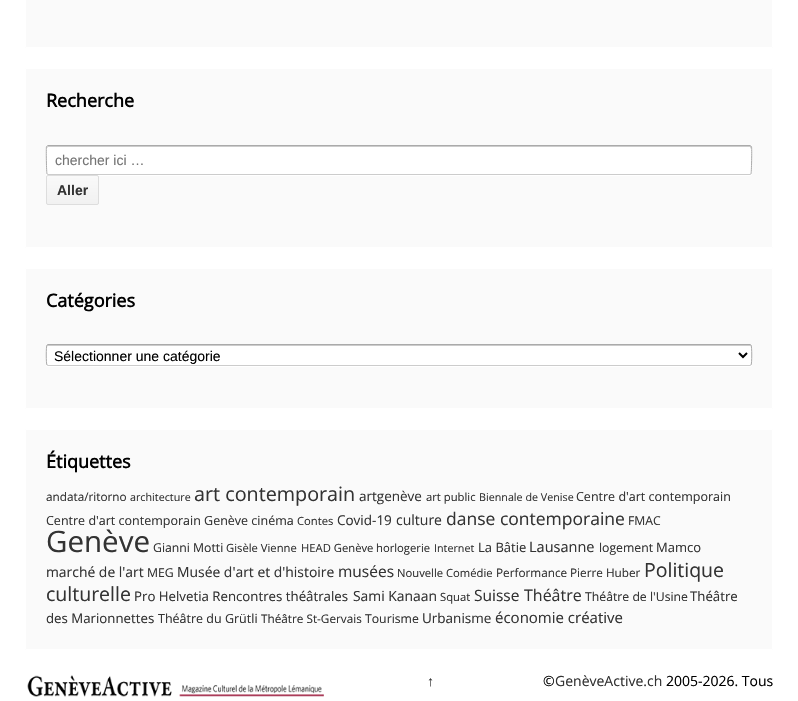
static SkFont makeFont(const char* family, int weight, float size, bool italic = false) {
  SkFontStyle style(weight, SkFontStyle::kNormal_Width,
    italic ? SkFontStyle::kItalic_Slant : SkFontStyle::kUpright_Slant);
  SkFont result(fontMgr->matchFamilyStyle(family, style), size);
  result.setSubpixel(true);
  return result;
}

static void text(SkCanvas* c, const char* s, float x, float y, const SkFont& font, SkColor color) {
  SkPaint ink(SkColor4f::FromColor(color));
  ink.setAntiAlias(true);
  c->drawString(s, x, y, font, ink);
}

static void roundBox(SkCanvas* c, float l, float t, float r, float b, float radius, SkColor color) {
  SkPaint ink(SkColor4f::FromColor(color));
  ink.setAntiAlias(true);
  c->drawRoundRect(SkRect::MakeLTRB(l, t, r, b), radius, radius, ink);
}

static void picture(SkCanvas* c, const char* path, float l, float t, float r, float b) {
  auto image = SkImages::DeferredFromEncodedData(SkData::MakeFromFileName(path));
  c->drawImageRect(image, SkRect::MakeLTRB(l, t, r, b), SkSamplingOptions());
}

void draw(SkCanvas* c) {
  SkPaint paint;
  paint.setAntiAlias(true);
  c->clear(0xffffffff);
  paint.setColor(0xfffafafa);
  c->drawRoundRect(SkRect::MakeLTRB(25.5f, -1.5f, 772.5f, 47.5f), 0.5f, 0.5f, paint);
  paint.setStyle(SkPaint::kStroke_Style);
  paint.setStrokeWidth(1);
  paint.setColor(0xffffffff);
  c->drawRoundRect(SkRect::MakeLTRB(25.5f, -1.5f, 772.5f, 47.5f), 0.5f, 0.5f, paint);
  paint.setStyle(SkPaint::kFill_Style);
  paint.setColor(0xfffafafa);
  c->drawRoundRect(SkRect::MakeLTRB(25.5f, 68.5f, 772.5f, 247.5f), 0.5f, 0.5f, paint);
  paint.setStyle(SkPaint::kStroke_Style);
  paint.setColor(0xffffffff);
  c->drawRoundRect(SkRect::MakeLTRB(25.5f, 68.5f, 772.5f, 247.5f), 0.5f, 0.5f, paint);
  SkFont face1 = makeFont("Open Sans", 700, 18);
  text(c, "Recherche", 46, 107, face1, 0xff000000);
  paint.setStyle(SkPaint::kFill_Style);
  c->drawPath(SkPathBuilder().moveTo(46, 173).cubicTo(46, 174, 46, 176, 48, 176).lineTo(750, 176).cubicTo(752, 176, 752, 174, 752, 173).cubicTo(752, 174, 751, 175, 750, 175).lineTo(48, 175).cubicTo(47, 175, 46, 174, 46, 173).close().detach(), paint);
  roundBox(c, 46, 145, 752, 175, 2, 0xffffffff);
  paint.setColor(0xffcccccc);
  c->drawPath(SkPathBuilder(SkPathFillType::kEvenOdd).moveTo(48, 147).lineTo(750, 147).lineTo(751, 149).lineTo(751, 146).lineTo(48, 146).lineTo(47, 147).lineTo(47, 148).close().moveTo(751, 173).lineTo(751, 174).close().detach(), paint);
  paint.setStyle(SkPaint::kStroke_Style);
  c->drawPath(SkPathBuilder().moveTo(751, 174).lineTo(750, 174.5f).lineTo(48, 174.5f).lineTo(47, 174).detach(), paint);
  paint.setColor(0xffaaaaaa);
  c->drawPath(SkPathBuilder().moveTo(47, 174).cubicTo(46.5f, 173.5f, 46, 148, 46.5f, 146.5f).lineTo(48, 145.5f).lineTo(750, 145.5f).lineTo(751.5f, 146.5f).cubicTo(752, 148, 751.5f, 173.5f, 751, 174).detach(), paint);
  SkFont face2 = makeFont("Liberation Sans", 400, 14);
  text(c, "chercher ici …", 55, 165, face2, 0xff757575);
  c->save();
  c->clipPath(SkPathBuilder().moveTo(48, 175).lineTo(97, 175).cubicTo(98, 175, 99, 176, 99, 177).lineTo(99, 203).cubicTo(99, 204, 98, 205, 97, 205).lineTo(48, 205).cubicTo(47, 205, 46, 204, 46, 203).lineTo(46, 177).cubicTo(46, 176, 47, 175, 48, 175).close().detach(), true);
  paint.setStyle(SkPaint::kFill_Style);
  {
    const SkColor colors[] = {0xfff9f9f9, 0xfff1f1f1};
    const float stops[] = {0, 1};
    const SkPoint ends[] = {{73, 176}, {73, 204}};
    paint.setShader(SkGradientShader::MakeLinear(ends, colors, stops, 2, SkTileMode::kClamp));
    paint.setAlpha(255);
  }
  c->drawRect(SkRect::MakeLTRB(46, 176, 99, 204), paint);
  c->restore();
  paint.setStyle(SkPaint::kStroke_Style);
  paint.setShader(nullptr);
  paint.setColor(0xffdddddd);
  c->drawRoundRect(SkRect::MakeLTRB(46.5f, 175.5f, 98.5f, 204.5f), 1.5f, 1.5f, paint);
  SkFont face3 = makeFont("Liberation Sans", 700, 14);
  text(c, "Aller", 57, 195, face3, 0xff333333);
  paint.setStyle(SkPaint::kFill_Style);
  paint.setColor(0xfffafafa);
  c->drawRoundRect(SkRect::MakeLTRB(25.5f, 268.5f, 772.5f, 408.5f), 0.5f, 0.5f, paint);
  paint.setStyle(SkPaint::kStroke_Style);
  paint.setColor(0xffffffff);
  c->drawRoundRect(SkRect::MakeLTRB(25.5f, 268.5f, 772.5f, 408.5f), 0.5f, 0.5f, paint);
  text(c, "Catégories", 46, 307, face1, 0xff000000);
  paint.setStyle(SkPaint::kFill_Style);
  c->drawPath(SkPathBuilder().moveTo(46, 364).cubicTo(46, 365, 46, 367, 48, 367).lineTo(750, 367).cubicTo(752, 367, 752, 365, 752, 364).cubicTo(752, 365, 751, 366, 750, 366).lineTo(48, 366).cubicTo(47, 366, 46, 365, 46, 364).close().detach(), paint);
  roundBox(c, 46, 344, 752, 366, 2, 0xffffffff);
  paint.setColor(0xffcccccc);
  c->drawPath(SkPathBuilder().moveTo(48, 346).lineTo(750, 346).cubicTo(751, 346, 751, 346, 751, 347).cubicTo(751, 346, 751, 345, 750, 345).lineTo(48, 345).cubicTo(47, 345, 47, 346, 47, 347).cubicTo(47, 346, 47, 346, 48, 346).close().detach(), paint);
  paint.setStyle(SkPaint::kStroke_Style);
  c->drawPath(SkPathBuilder().moveTo(751, 365).lineTo(750, 365.5f).lineTo(48, 365.5f).lineTo(47, 365).detach(), paint);
  paint.setColor(0xffaaaaaa);
  c->drawPath(SkPathBuilder().moveTo(47, 365).cubicTo(46, 364.5f, 46, 345.5f, 47, 345).lineTo(48, 344.5f).lineTo(750, 344.5f).lineTo(751, 345).cubicTo(752, 345.5f, 752, 364.5f, 751, 365).detach(), paint);
  paint.setStrokeWidth(2);
  paint.setColor(0xff000000);
  c->drawPath(SkPathBuilder().moveTo(739, 353).lineTo(743, 357).lineTo(747, 353).detach(), paint);
  text(c, "Sélectionner une catégorie", 54, 361, face2, 0xff000000);
  paint.setStyle(SkPaint::kFill_Style);
  paint.setColor(0xfffafafa);
  c->drawRoundRect(SkRect::MakeLTRB(25.5f, 429.5f, 772.5f, 649.5f), 0.5f, 0.5f, paint);
  paint.setStyle(SkPaint::kStroke_Style);
  paint.setStrokeWidth(1);
  paint.setColor(0xffffffff);
  c->drawRoundRect(SkRect::MakeLTRB(25.5f, 429.5f, 772.5f, 649.5f), 0.5f, 0.5f, paint);
  text(c, "Étiquettes", 46, 468, face1, 0xff000000);
  SkFont face4 = makeFont("Open Sans", 400, 11.75f);
  text(c, "andata/ritorno", 46, 501, face4, 0xff333333);
  SkFont face5 = makeFont("Open Sans", 400, 10.75f);
  text(c, "architecture", 130, 501, face5, 0xff333333);
  SkFont face6 = makeFont("Open Sans", 400, 19.75f);
  text(c, "art contemporain", 194, 501, face6, 0xff333333);
  SkFont face7 = makeFont("Open Sans", 400, 13.5f);
  text(c, "artgenève", 359, 501, face7, 0xff333333);
  SkFont face8 = makeFont("Open Sans", 400, 11.25f);
  text(c, "art public", 426, 501, face8, 0xff333333);
  text(c, "Biennale de Venise", 479, 501, face5, 0xff333333);
  SkFont face9 = makeFont("Open Sans", 400, 12.5f);
  text(c, "Centre d'art contemporain", 576, 501, face9, 0xff333333);
  text(c, "Centre d'art contemporain Genève cinéma", 46, 525, face9, 0xff333333);
  text(c, "Contes", 297, 525, face8, 0xff333333);
  text(c, "Covid-19", 337, 525, face7, 0xff333333);
  SkFont face10 = makeFont("Open Sans", 400, 14);
  text(c, "culture", 396, 525, face10, 0xff333333);
  SkFont face11 = makeFont("Open Sans", 400, 17.5f);
  text(c, "danse contemporaine", 446, 525, face11, 0xff333333);
  SkFont face12 = makeFont("Open Sans", 400, 12.25f);
  text(c, "FMAC", 628, 525, face12, 0xff333333);
  SkFont face13 = makeFont("Open Sans", 400, 29.5f);
  text(c, "Genève", 46, 552, face13, 0xff333333);
  text(c, "Gianni Motti", 153, 552, face12, 0xff333333);
  text(c, "Gisèle Vienne", 226, 552, face8, 0xff333333);
  text(c, "HEAD Genève", 301, 552, face8, 0xff333333);
  text(c, "horlogerie", 376, 552, face8, 0xff333333);
  text(c, "Internet", 434, 552, face5, 0xff333333);
  SkFont face14 = makeFont("Open Sans", 400, 13);
  text(c, "La Bâtie", 478, 552, face14, 0xff333333);
  SkFont face15 = makeFont("Open Sans", 400, 14.5f);
  text(c, "Lausanne", 529, 552, face15, 0xff333333);
  text(c, "logement", 599, 552, face12, 0xff333333);
  text(c, "Mamco", 656, 552, face14, 0xff333333);
  SkFont face16 = makeFont("Open Sans", 400, 13.9f);
  text(c, "marché de l'art", 46, 577, face16, 0xff333333);
  text(c, "MEG", 147, 577, face12, 0xff333333);
  text(c, "Musée d'art et d'histoire", 177, 577, face16, 0xff333333);
  SkFont face17 = makeFont("Open Sans", 400, 15.5f);
  text(c, "musées", 338, 577, face17, 0xff333333);
  text(c, "Nouvelle Comédie", 397, 577, face8, 0xff333333);
  text(c, "Performance", 496, 577, face4, 0xff333333);
  text(c, "Pierre Huber", 570, 577, face4, 0xff333333);
  SkFont face18 = makeFont("Open Sans", 400, 19.5f);
  text(c, "Politique", 644, 577, face18, 0xff333333);
  text(c, "culturelle", 46, 601, face18, 0xff333333);
  SkFont face19 = makeFont("Open Sans", 400, 13.25f);
  text(c, "Pro Helvetia Rencontres théâtrales", 134, 601, face19, 0xff333333);
  text(c, "Sami Kanaan", 353, 601, face16, 0xff333333);
  text(c, "Squat", 440, 601, face8, 0xff333333);
  text(c, "Suisse", 474, 601, face17, 0xff333333);
  SkFont face20 = makeFont("Open Sans", 400, 16);
  text(c, "Théâtre", 524, 601, face20, 0xff333333);
  text(c, "Théâtre de l'Usine", 585, 601, face12, 0xff333333);
  text(c, "Théâtre", 690, 601, face19, 0xff333333);
  text(c, "des Marionnettes", 46, 623, face19, 0xff333333);
  text(c, "Théâtre du Grütli", 158, 623, face9, 0xff333333);
  text(c, "Théâtre St-Gervais", 261, 623, face4, 0xff333333);
  text(c, "Tourisme", 365, 623, face12, 0xff333333);
  text(c, "Urbanisme", 422, 623, face7, 0xff333333);
  SkFont face21 = makeFont("Open Sans", 400, 15);
  text(c, "économie créative", 495, 623, face21, 0xff333333);
  picture(c, "img_01.png", 27, 675, 324, 697);
  text(c, "↑", 427, 686, face2, 0xff333333);
  text(c, "©", 543, 686, face10, 0xff000000);
  text(c, "GenèveActive.ch", 555, 686, face10, 0xff333333);
  text(c, "2005-2026. Tous", 666, 686, face10, 0xff000000);
}
